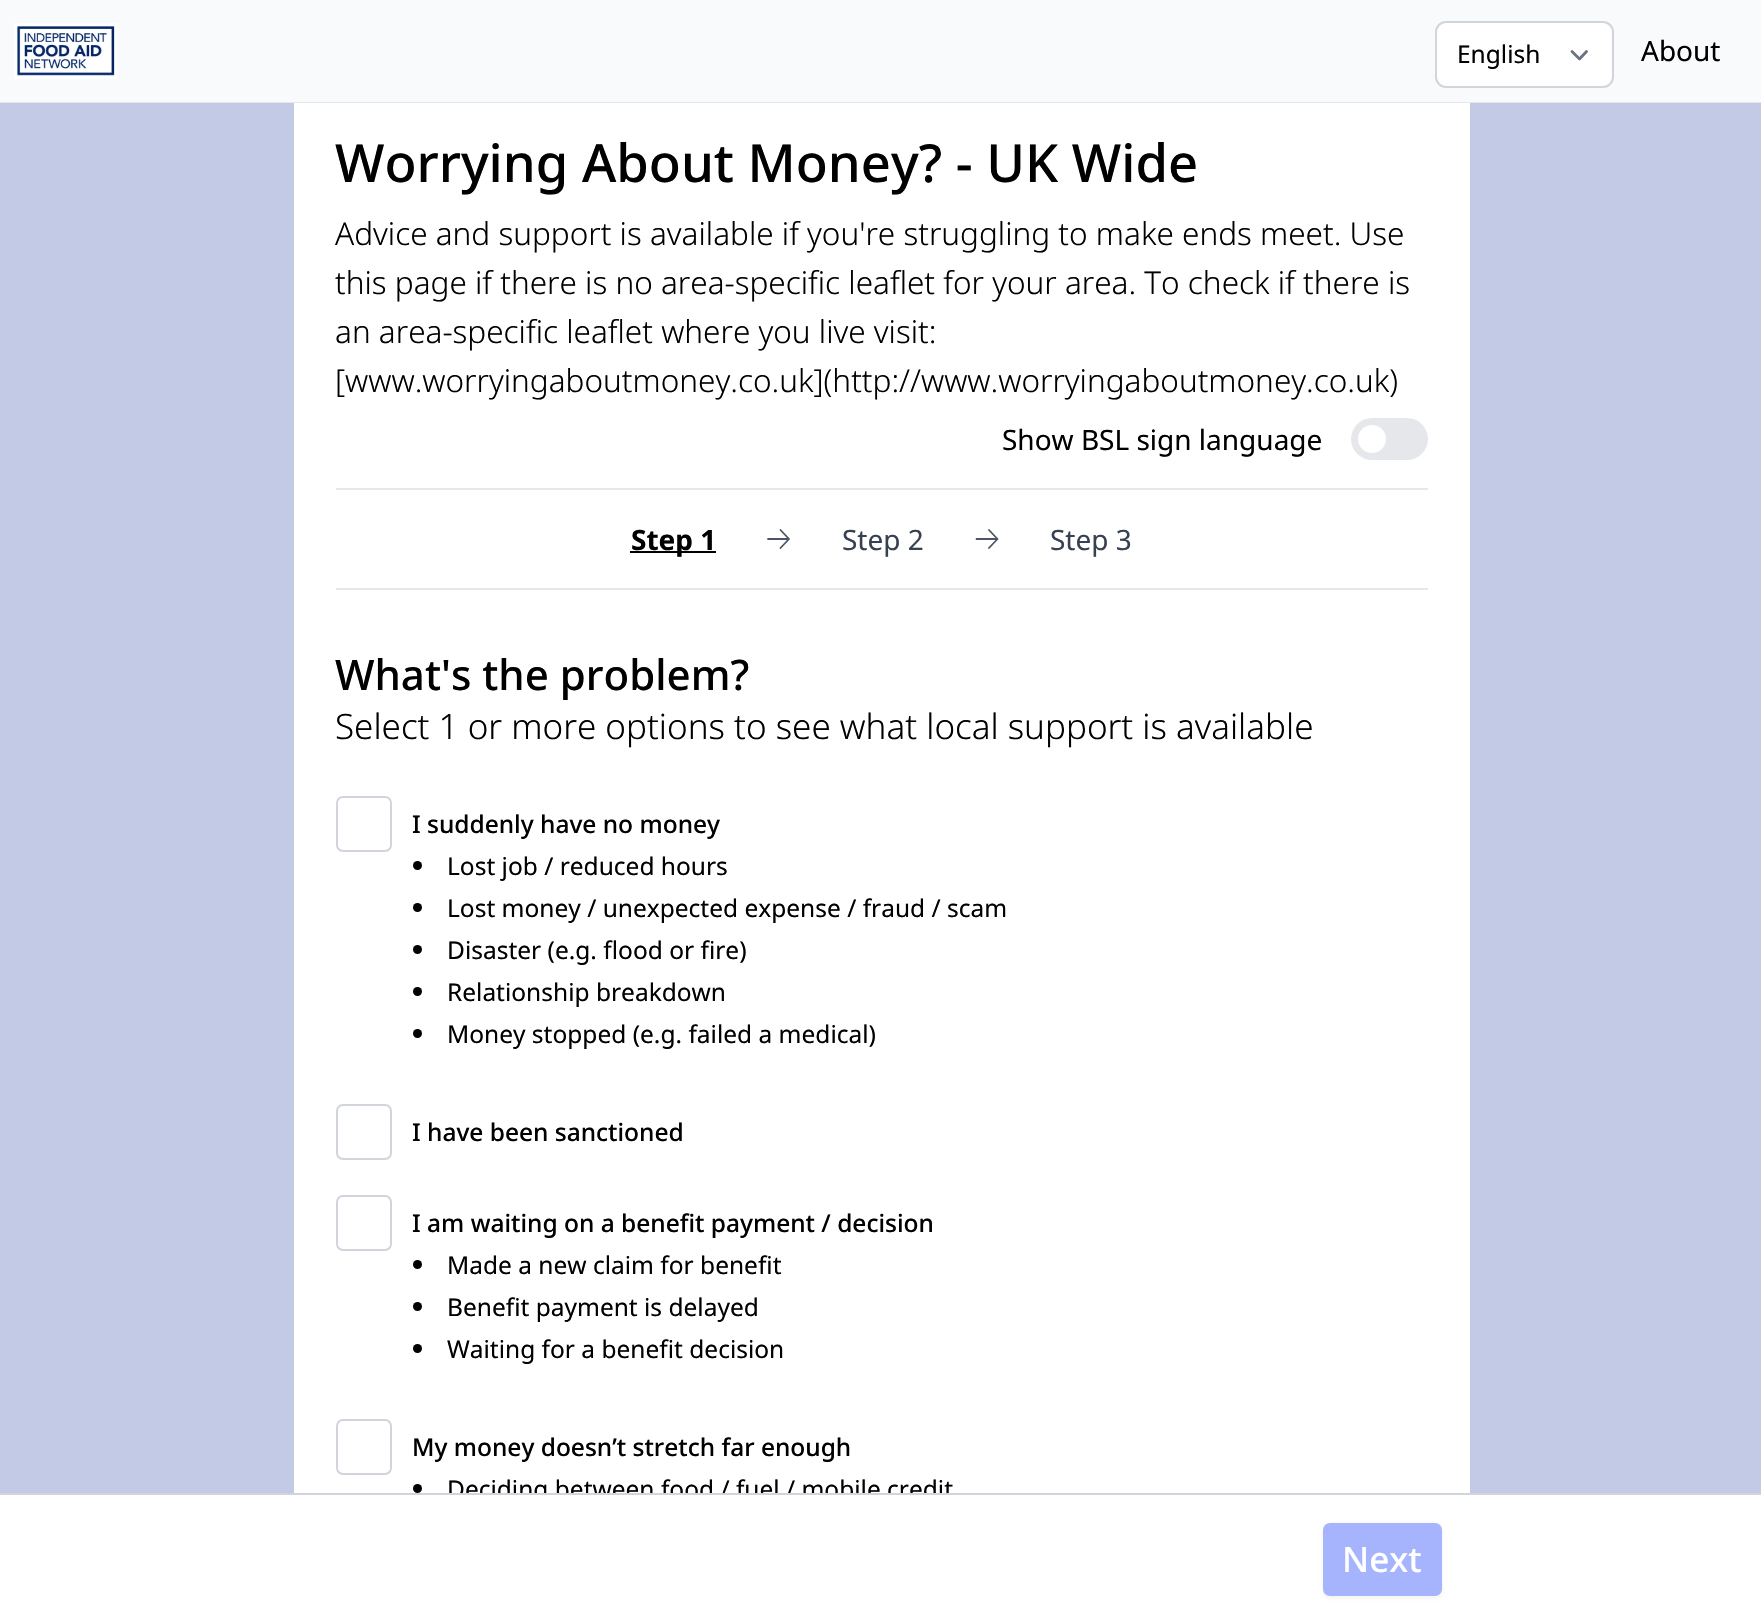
static SkFont makeFont(const char* family, int weight, float size, bool italic = false) {
  SkFontStyle style(weight, SkFontStyle::kNormal_Width,
    italic ? SkFontStyle::kItalic_Slant : SkFontStyle::kUpright_Slant);
  SkFont result(fontMgr->matchFamilyStyle(family, style), size);
  result.setSubpixel(true);
  return result;
}

static void text(SkCanvas* c, const char* s, float x, float y, const SkFont& font, SkColor color) {
  SkPaint ink(SkColor4f::FromColor(color));
  ink.setAntiAlias(true);
  c->drawString(s, x, y, font, ink);
}

static void box(SkCanvas* c, float l, float t, float r, float b, SkColor color) {
  SkPaint ink(SkColor4f::FromColor(color));
  ink.setAntiAlias(true);
  c->drawRect(SkRect::MakeLTRB(l, t, r, b), ink);
}

static void roundBox(SkCanvas* c, float l, float t, float r, float b, float radius, SkColor color) {
  SkPaint ink(SkColor4f::FromColor(color));
  ink.setAntiAlias(true);
  c->drawRoundRect(SkRect::MakeLTRB(l, t, r, b), radius, radius, ink);
}

static void picture(SkCanvas* c, const char* path, float l, float t, float r, float b) {
  auto image = SkImages::DeferredFromEncodedData(SkData::MakeFromFileName(path));
  c->drawImageRect(image, SkRect::MakeLTRB(l, t, r, b), SkSamplingOptions());
}

void draw(SkCanvas* c) {
  SkPaint paint;
  paint.setAntiAlias(true);
  c->clear(0xffffffff);
  box(c, 0, 0, 1761, 102, 0xfff9fafb);
  box(c, 0, 102, 1761, 103, 0xffe5e7eb);
  picture(c, "img_01.png", 14, 23, 117, 79);
  roundBox(c, 1435, 21, 1614, 88, 11, 0xffffffff);
  paint.setStyle(SkPaint::kStroke_Style);
  paint.setStrokeWidth(2.8f);
  paint.setStrokeCap(SkPaint::kRound_Cap);
  paint.setStrokeJoin(SkPaint::kRound_Join);
  paint.setColor(0xff6b7280);
  c->drawPath(SkPathBuilder().moveTo(1572, 51.5f).lineTo(1579.5f, 59).lineTo(1586.5f, 51.5f).detach(), paint);
  paint.setStrokeWidth(2);
  paint.setStrokeCap(SkPaint::kButt_Cap);
  paint.setStrokeJoin(SkPaint::kMiter_Join);
  paint.setColor(0xffd1d5db);
  c->drawRoundRect(SkRect::MakeLTRB(1436, 22, 1613, 87), 10, 10, paint);
  SkFont face1 = makeFont("Noto Sans", 400, 24.5f);
  text(c, "English", 1457, 63, face1, 0xff000000);
  SkFont face2 = makeFont("Noto Sans", 400, 28);
  text(c, "About", 1641, 61, face2, 0xff000000);
  box(c, 0, 103, 1761, 1493, 0xffc3cae6);
  box(c, 294, 103, 1470, 1493, 0xffffffff);
  SkFont face3 = makeFont("Noto Sans", 500, 52.5f);
  text(c, "Worrying About Money? - UK Wide", 335, 182, face3, 0xff000000);
  SkFont face4 = makeFont("Noto Sans", 300, 31.5f);
  text(c, "Advice and support is available if you're struggling to make ends meet. Use", 335, 245, face4, 0xff000000);
  text(c, "this page if there is no area-specific leaflet for your area. To check if there is", 335, 294, face4, 0xff000000);
  text(c, "an area-specific leaflet where you live visit:", 335, 343, face4, 0xff000000);
  text(c, "[www.worryingaboutmoney.co.uk](http://www.worryingaboutmoney.co.uk)", 335, 392, face4, 0xff000000);
  text(c, "Show BSL sign language", 1002, 450, face2, 0xff000000);
  roundBox(c, 1351, 418, 1428, 460, 21, 0xffe5e7eb);
  paint.setStyle(SkPaint::kFill_Style);
  paint.setColor(0xffffffff);
  c->drawCircle(1372, 439, 14, paint);
  box(c, 336, 488, 1428, 490, 0xffe5e7eb);
  box(c, 336, 588, 1428, 590, 0xffe5e7eb);
  box(c, 630, 551, 716, 553, 0xff000000);
  SkFont face5 = makeFont("Noto Sans", 700, 28);
  text(c, "Step 1", 631, 550, face5, 0xff000000);
  paint.setStyle(SkPaint::kStroke_Style);
  paint.setStrokeWidth(1.8f);
  paint.setStrokeCap(SkPaint::kRound_Cap);
  paint.setStrokeJoin(SkPaint::kRound_Join);
  paint.setColor(0xff4b5563);
  c->drawPath(SkPathBuilder().moveTo(780.5f, 530).lineTo(789, 539).moveTo(789, 539).lineTo(780.5f, 548).moveTo(789, 539).lineTo(768, 539).detach(), paint);
  text(c, "Step 2", 842, 550, face2, 0xff374151);
  c->drawPath(SkPathBuilder().moveTo(989, 530).lineTo(997.5f, 539).moveTo(997.5f, 539).lineTo(989, 548).moveTo(997.5f, 539).lineTo(976.5f, 539).detach(), paint);
  text(c, "Step 3", 1050, 550, face2, 0xff374151);
  SkFont face6 = makeFont("Noto Sans", 500, 42);
  text(c, "What's the problem?", 335, 690, face6, 0xff000000);
  SkFont face7 = makeFont("Noto Sans", 300, 35);
  text(c, "Select 1 or more options to see what local support is available", 335, 739, face7, 0xff000000);
  paint.setStrokeWidth(2);
  paint.setStrokeCap(SkPaint::kButt_Cap);
  paint.setStrokeJoin(SkPaint::kMiter_Join);
  paint.setColor(0xffd1d5db);
  c->drawRoundRect(SkRect::MakeLTRB(337, 797, 391, 851), 6, 6, paint);
  SkFont face8 = makeFont("Noto Sans", 500, 24.5f);
  text(c, "I suddenly have no money", 412, 833, face8, 0xff000000);
  paint.setStyle(SkPaint::kFill_Style);
  paint.setColor(0xff000000);
  c->drawCircle(417.5f, 865.5f, 4.5f, paint);
  text(c, "Lost job / reduced hours", 447, 875, face1, 0xff000000);
  c->drawCircle(417.5f, 907.5f, 4.5f, paint);
  text(c, "Lost money / unexpected expense / fraud / scam", 447, 917, face1, 0xff000000);
  c->drawCircle(417.5f, 949.5f, 4.5f, paint);
  text(c, "Disaster (e.g. flood or fire)", 447, 959, face1, 0xff000000);
  c->drawCircle(417.5f, 991.5f, 4.5f, paint);
  text(c, "Relationship breakdown", 447, 1001, face1, 0xff000000);
  c->drawCircle(417.5f, 1033.5f, 4.5f, paint);
  text(c, "Money stopped (e.g. failed a medical)", 447, 1043, face1, 0xff000000);
  paint.setStyle(SkPaint::kStroke_Style);
  paint.setColor(0xffd1d5db);
  c->drawRoundRect(SkRect::MakeLTRB(337, 1105, 391, 1159), 6, 6, paint);
  text(c, "I have been sanctioned", 412, 1141, face8, 0xff000000);
  c->drawRoundRect(SkRect::MakeLTRB(337, 1196, 391, 1250), 6, 6, paint);
  text(c, "I am waiting on a benefit payment / decision", 412, 1232, face8, 0xff000000);
  paint.setStyle(SkPaint::kFill_Style);
  paint.setColor(0xff000000);
  c->drawCircle(417.5f, 1264.5f, 4.5f, paint);
  text(c, "Made a new claim for benefit", 447, 1274, face1, 0xff000000);
  c->drawCircle(417.5f, 1306.5f, 4.5f, paint);
  text(c, "Benefit payment is delayed", 447, 1316, face1, 0xff000000);
  c->drawCircle(417.5f, 1348.5f, 4.5f, paint);
  text(c, "Waiting for a benefit decision", 447, 1358, face1, 0xff000000);
  paint.setStyle(SkPaint::kStroke_Style);
  paint.setColor(0xffd1d5db);
  c->drawRoundRect(SkRect::MakeLTRB(337, 1420, 391, 1474), 6, 6, paint);
  text(c, "My money doesn’t stretch far enough", 412, 1456, face8, 0xff000000);
  paint.setStyle(SkPaint::kFill_Style);
  paint.setColor(0xff000000);
  c->drawCircle(417.5f, 1488.5f, 4.5f, paint);
  c->save();
  c->clipRect(SkRect::MakeLTRB(0, 103, 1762, 1493));
  text(c, "Deciding between food / fuel / mobile credit", 447, 1498, face1, 0xff000000);
  c->restore();
  box(c, 0, 1493, 1761, 1495, 0xffd1d5db);
  paint.setColor(0x0d000000);
  paint.setMaskFilter(SkMaskFilter::MakeBlur(kNormal_SkBlurStyle, 2));
  c->drawRoundRect(SkRect::MakeLTRB(1323, 1524, 1442, 1598), 7, 7, paint);
  paint.setMaskFilter(nullptr);
  roundBox(c, 1323, 1523, 1442, 1596, 7, 0xffa5b4fc);
  SkFont face9 = makeFont("Noto Sans", 500, 35);
  text(c, "Next", 1342, 1572, face9, 0xffffffff);
}
